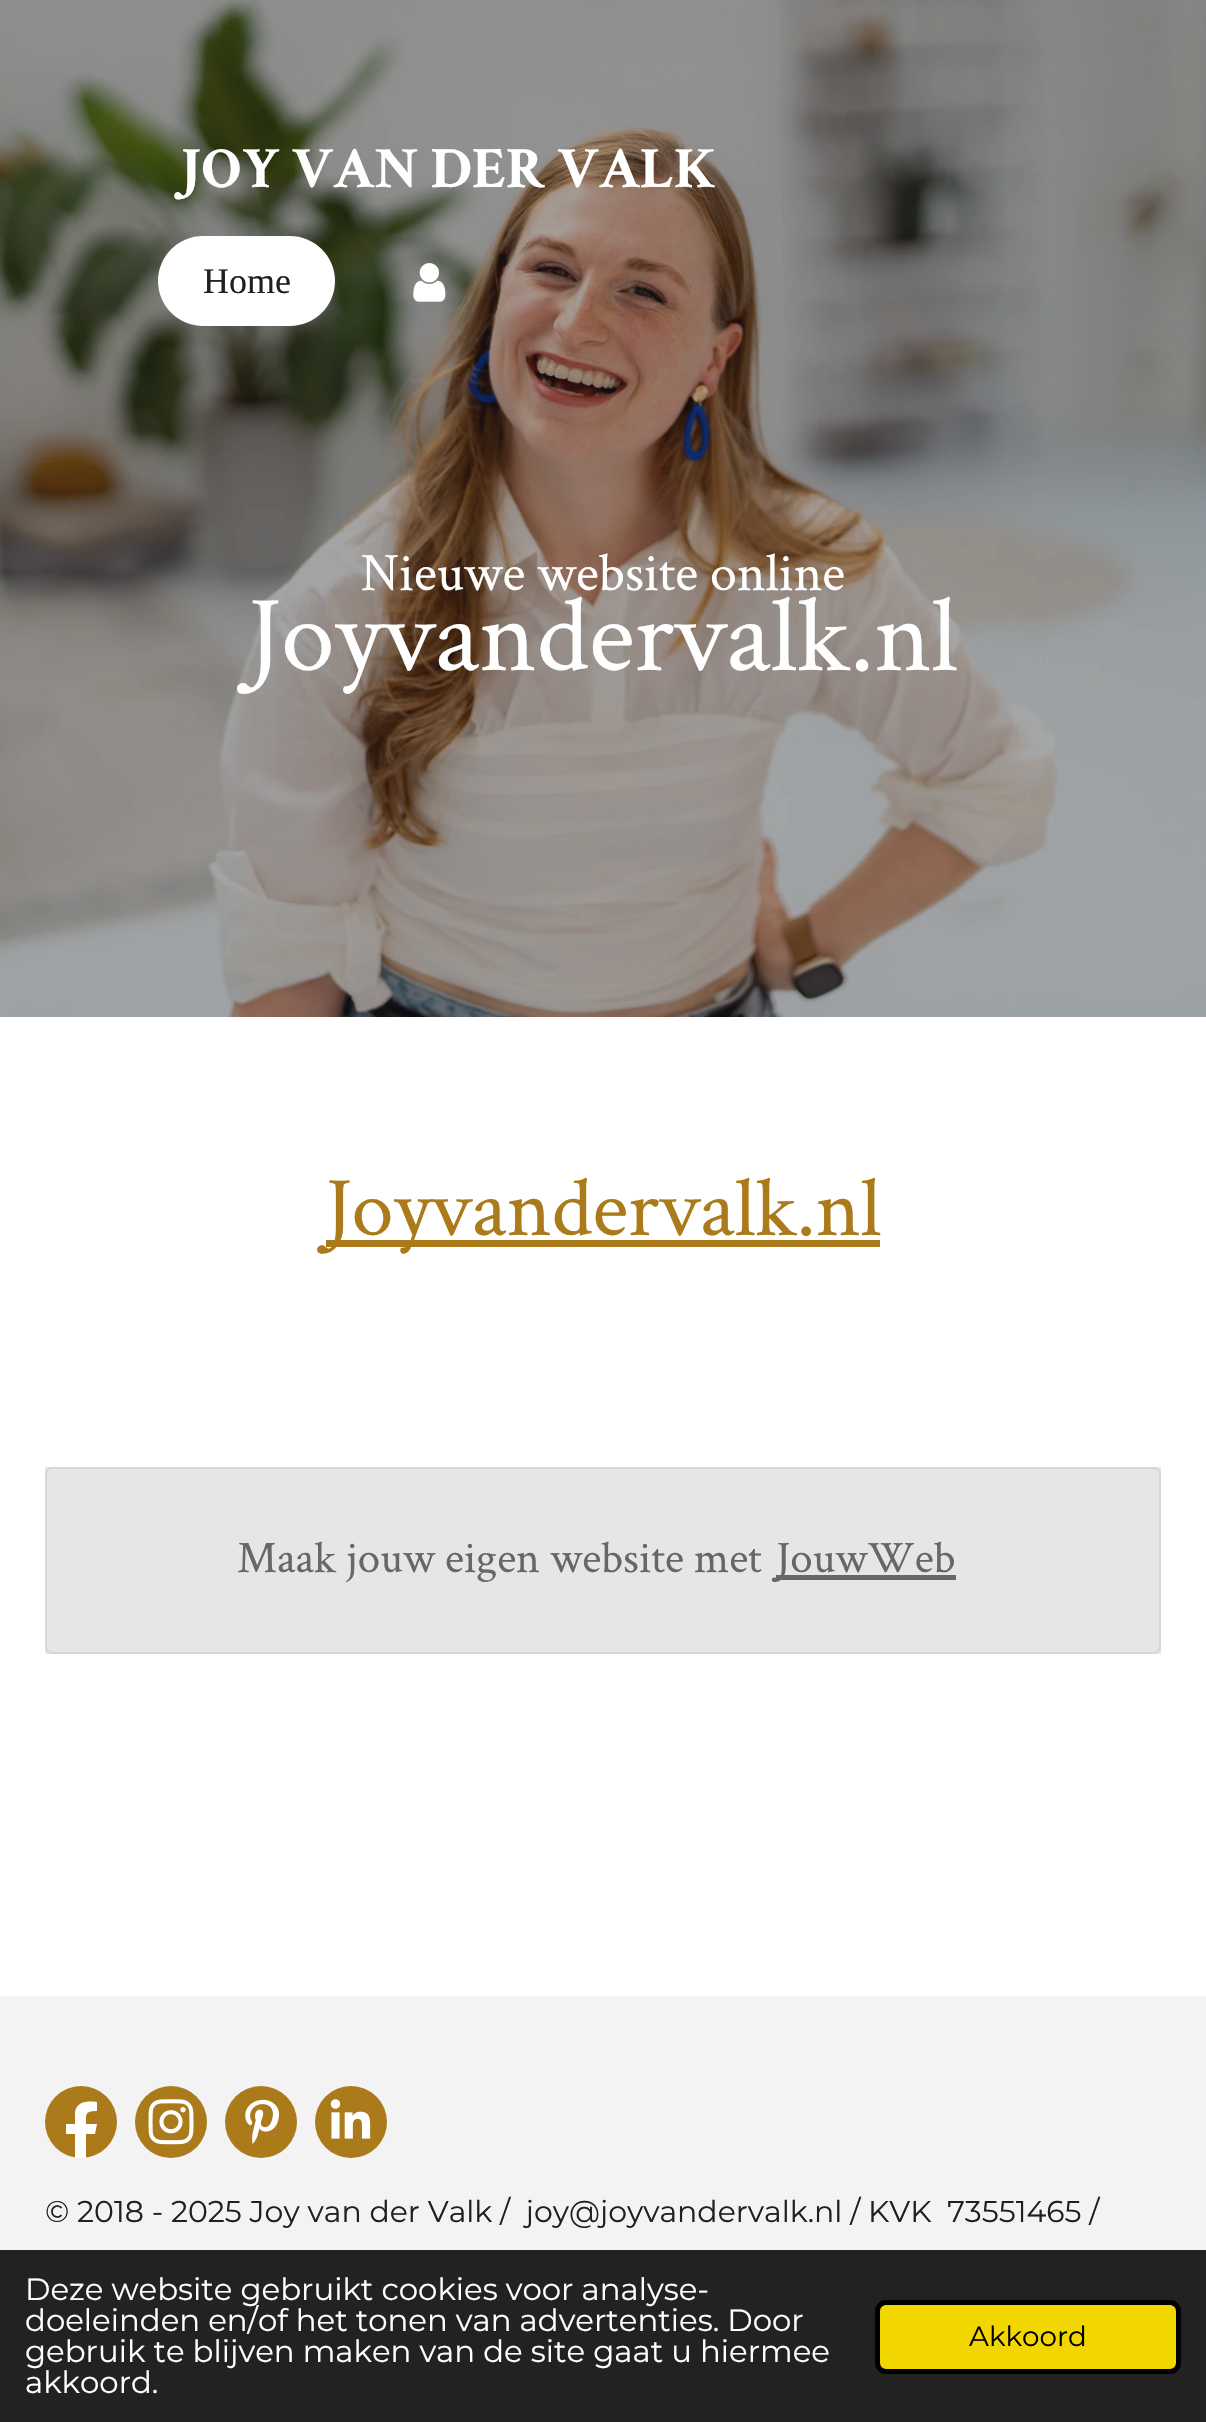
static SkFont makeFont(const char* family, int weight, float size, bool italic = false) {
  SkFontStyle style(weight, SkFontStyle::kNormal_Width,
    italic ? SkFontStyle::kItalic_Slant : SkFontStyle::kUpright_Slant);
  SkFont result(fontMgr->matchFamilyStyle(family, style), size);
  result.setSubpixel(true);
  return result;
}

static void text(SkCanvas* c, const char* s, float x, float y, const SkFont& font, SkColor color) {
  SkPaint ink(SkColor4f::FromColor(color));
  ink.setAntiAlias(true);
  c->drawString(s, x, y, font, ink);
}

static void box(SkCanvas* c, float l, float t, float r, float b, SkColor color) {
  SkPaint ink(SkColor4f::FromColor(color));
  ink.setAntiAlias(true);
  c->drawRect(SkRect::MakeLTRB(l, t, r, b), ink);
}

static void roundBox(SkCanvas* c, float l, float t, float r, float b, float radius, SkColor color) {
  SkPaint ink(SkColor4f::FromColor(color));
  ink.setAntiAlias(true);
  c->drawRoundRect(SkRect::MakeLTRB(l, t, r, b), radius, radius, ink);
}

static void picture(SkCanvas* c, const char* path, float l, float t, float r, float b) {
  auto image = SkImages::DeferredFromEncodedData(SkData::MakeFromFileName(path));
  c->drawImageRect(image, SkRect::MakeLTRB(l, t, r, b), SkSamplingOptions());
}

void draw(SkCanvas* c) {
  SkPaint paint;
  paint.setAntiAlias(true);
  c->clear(0xffffffff);
  picture(c, "img_02.png", 0, 0, 1206, 1017);
  SkFont face1 = makeFont("Crimson Text", 700, 58.5f);
  text(c, "JOY VAN DER VALK", 180, 187, face1, 0xffffffff);
  roundBox(c, 158, 236, 335, 326, 45, 0xffffffff);
  SkFont face2 = makeFont("Liberation Serif", 400, 36);
  text(c, "Home", 203, 293, face2, 0xff202020);
  picture(c, "img_01.png", 413, 263, 446, 302);
  SkFont face3 = makeFont("Crimson Text", 400, 54);
  text(c, "Nieuwe website online", 361, 590, face3, 0xffffffff);
  SkFont face4 = makeFont("Crimson Text", 400, 108);
  text(c, "Joyvandervalk.nl", 247, 670, face4, 0xffffffff);
  box(c, 326, 1240, 880, 1247, 0xffab7a1a);
  SkFont face5 = makeFont("Crimson Text", 400, 84.5f);
  text(c, "Joyvandervalk.nl", 325, 1235, face5, 0xffab7a1a);
  box(c, 45, 1467, 1161, 1654, 0xffe6e6e6);
  paint.setStyle(SkPaint::kStroke_Style);
  paint.setStrokeWidth(2);
  paint.setColor(0xffd6d6d6);
  c->drawRoundRect(SkRect::MakeLTRB(46, 1468, 1160, 1653), 6, 6, paint);
  SkFont face6 = makeFont("Crimson Text", 400, 45);
  text(c, "Maak jouw eigen website met", 237, 1572, face6, 0xff676767);
  box(c, 776, 1575, 956, 1580, 0xff676767);
  text(c, "JouwWeb", 776, 1572, face6, 0xff676767);
  box(c, 0, 1996, 1206, 2250, 0xfff3f3f3);
  paint.setStyle(SkPaint::kFill_Style);
  paint.setColor(0xffab7a1a);
  c->drawCircle(81, 2122, 36, paint);
  paint.setColor(0xffffffff);
  c->drawPath(SkPathBuilder().moveTo(95, 2134).lineTo(86, 2134).lineTo(86, 2158).cubicTo(82, 2158, 79, 2158, 75, 2158).lineTo(75, 2134).lineTo(66, 2134).lineTo(66, 2124).lineTo(75, 2124).lineTo(75, 2112).cubicTo(77, 2101, 88, 2101, 97, 2102).lineTo(97, 2111).cubicTo(85, 2111, 86, 2114, 86, 2124).lineTo(97, 2124).close().detach(), paint);
  paint.setColor(0xffab7a1a);
  c->drawCircle(171, 2122, 36, paint);
  picture(c, "img_03.png", 148, 2099, 194, 2145);
  c->drawCircle(261, 2122, 36, paint);
  picture(c, "img_04.png", 245, 2099, 279, 2144);
  c->drawCircle(351, 2122, 36, paint);
  picture(c, "img_05.png", 330, 2099, 371, 2139);
  SkFont face7 = makeFont("Montserrat", 400, 29.95f);
  text(c, "© 2018 - 2025 Joy van der Valk /  joy@joyvandervalk.nl / KVK  73551465 /", 45, 2222, face7, 0xff202020);
  box(c, 0, 2250, 1206, 2422, 0xff222222);
  SkFont face8 = makeFont("Montserrat", 400, 30.8f);
  text(c, "Deze website gebruikt cookies voor analyse-", 25, 2300, face8, 0xffffffff);
  text(c, "doeleinden en/of het tonen van advertenties. Door", 25, 2331, face8, 0xffffffff);
  text(c, "gebruik te blijven maken van de site gaat u hiermee", 25, 2362, face8, 0xffffffff);
  text(c, "akkoord.", 25, 2393, face8, 0xffffffff);
  paint.setColor(0xfff1d600);
  c->drawRoundRect(SkRect::MakeLTRB(877.5f, 2302.5f, 1178.5f, 2371.5f), 8.5f, 8.5f, paint);
  paint.setStyle(SkPaint::kStroke_Style);
  paint.setStrokeWidth(5);
  paint.setColor(0xff000000);
  c->drawRoundRect(SkRect::MakeLTRB(877.5f, 2302.5f, 1178.5f, 2371.5f), 8.5f, 8.5f, paint);
  SkFont face9 = makeFont("Montserrat", 400, 27.75f);
  text(c, "Akkoord", 969, 2346, face9, 0xff000000);
}
